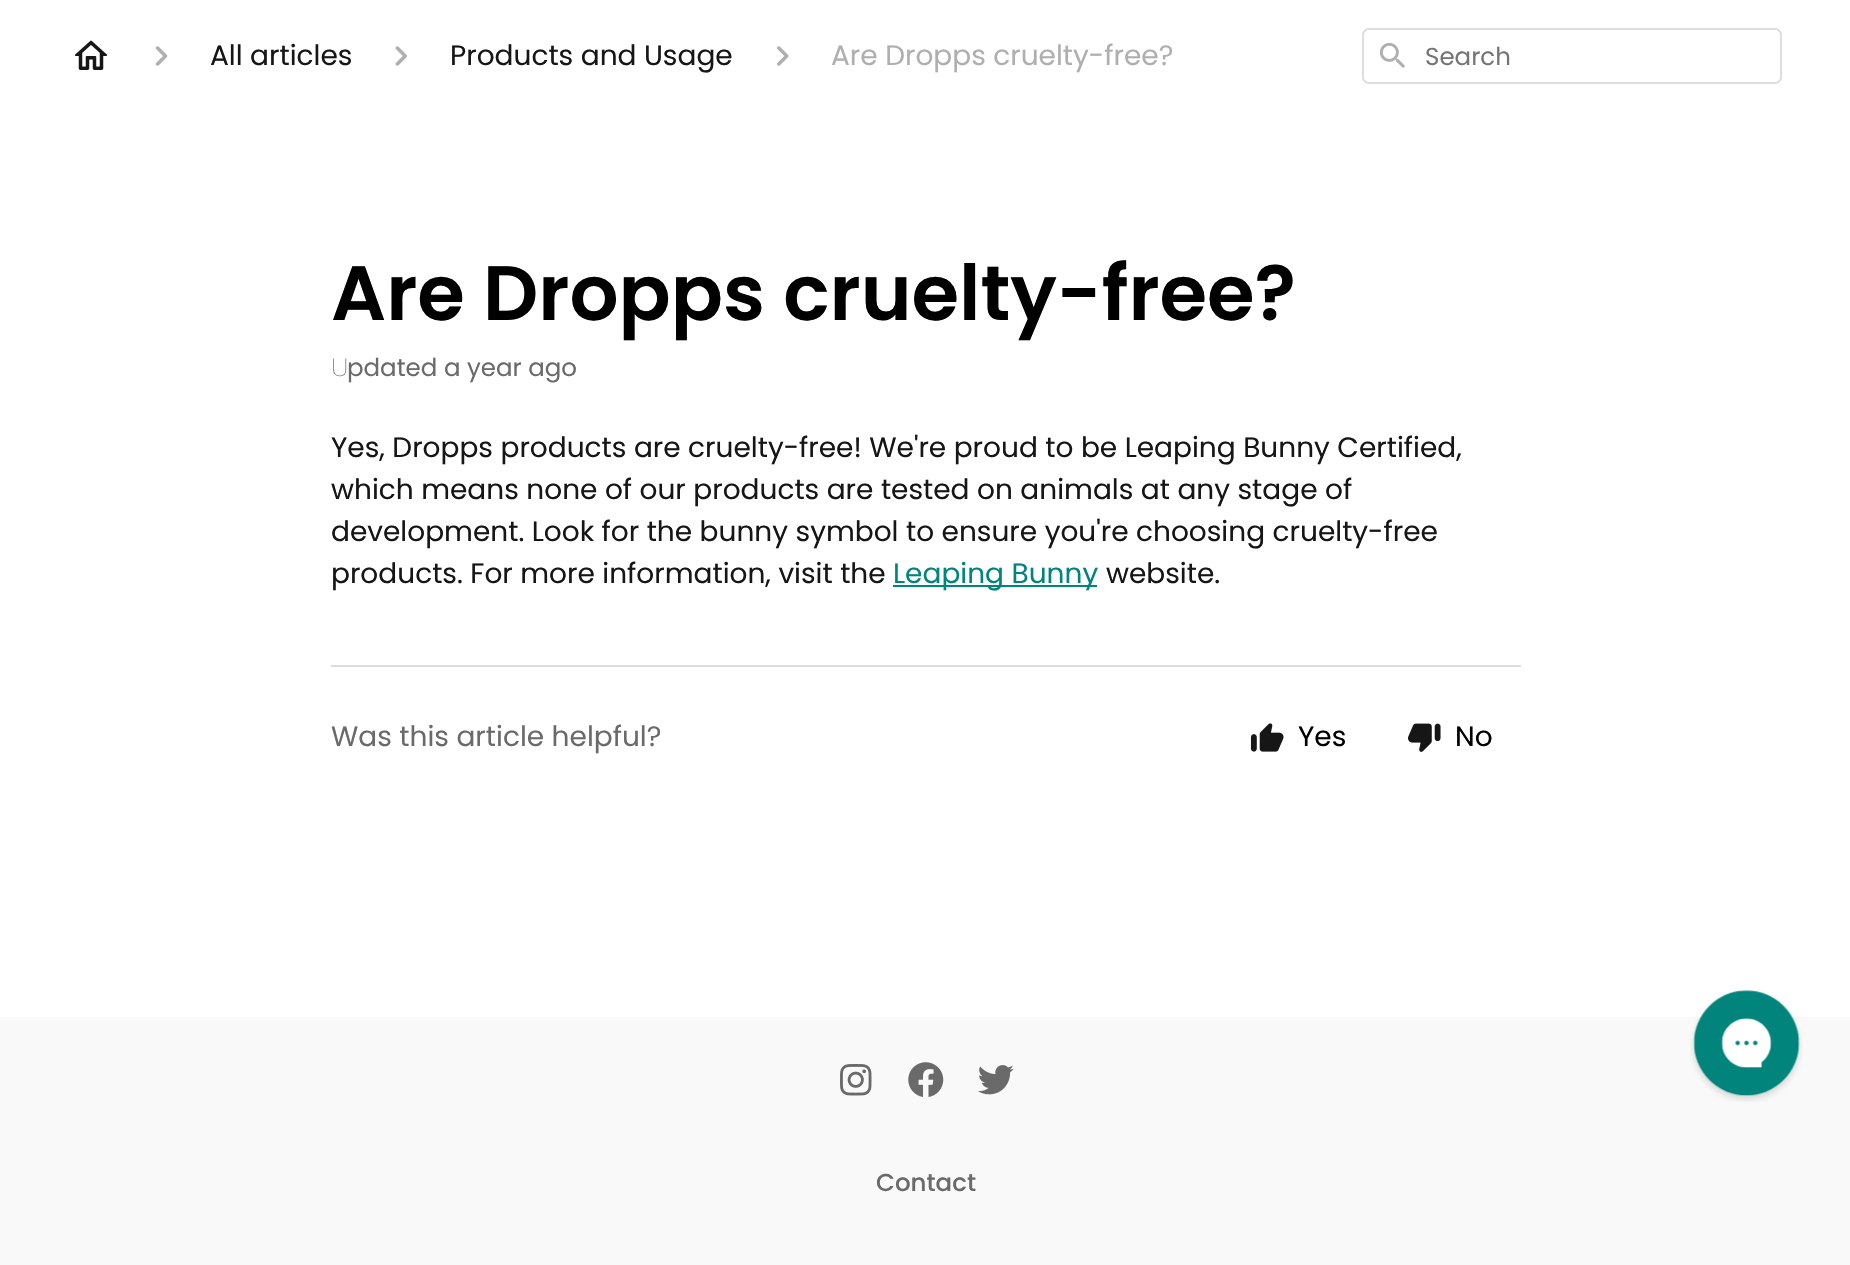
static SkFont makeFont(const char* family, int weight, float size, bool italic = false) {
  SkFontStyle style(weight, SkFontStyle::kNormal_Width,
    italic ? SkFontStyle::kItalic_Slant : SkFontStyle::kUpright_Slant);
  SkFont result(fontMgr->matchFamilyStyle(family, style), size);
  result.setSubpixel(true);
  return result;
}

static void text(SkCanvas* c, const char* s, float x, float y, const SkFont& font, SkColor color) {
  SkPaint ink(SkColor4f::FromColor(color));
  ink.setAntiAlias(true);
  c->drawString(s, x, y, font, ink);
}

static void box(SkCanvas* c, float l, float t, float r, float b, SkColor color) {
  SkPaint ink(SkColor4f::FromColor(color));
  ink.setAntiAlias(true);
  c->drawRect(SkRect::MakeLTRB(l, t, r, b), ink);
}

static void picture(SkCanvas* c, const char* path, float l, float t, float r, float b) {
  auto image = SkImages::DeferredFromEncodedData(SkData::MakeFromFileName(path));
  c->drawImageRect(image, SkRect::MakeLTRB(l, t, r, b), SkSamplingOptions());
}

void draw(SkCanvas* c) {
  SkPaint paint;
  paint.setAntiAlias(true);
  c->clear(0xffffffff);
  picture(c, "img_01.png", 74, 40, 108, 70);
  picture(c, "img_02.png", 155, 46, 168, 66);
  SkFont face1 = makeFont("Poppins", 400, 28);
  text(c, "All articles", 210, 65, face1, 0xff161616);
  picture(c, "img_03.png", 395, 46, 407, 66);
  text(c, "Products and Usage", 450, 65, face1, 0xff161616);
  picture(c, "img_04.png", 777, 46, 789, 66);
  text(c, "Are Dropps cruelty-free?", 831, 65, face1, 0xffafafaf);
  paint.setStyle(SkPaint::kStroke_Style);
  paint.setStrokeWidth(2);
  paint.setColor(0xffdddddd);
  c->drawRoundRect(SkRect::MakeLTRB(1363, 29, 1781, 83), 6, 6, paint);
  picture(c, "img_05.png", 1379, 42, 1405, 68);
  SkFont face2 = makeFont("Poppins", 400, 24.5f);
  text(c, "Search", 1425, 65, face2, 0xff757575);
  SkFont face3 = makeFont("Poppins", 600, 77);
  text(c, "Are Dropps cruelty-free?", 331, 320, face3, 0xff000000);
  SkFont face4 = makeFont("Noto Sans", 100, 24.5f);
  text(c, "U", 331, 376, face4, 0xff6a6a6a);
  text(c, "pdated a year ago", 347, 376, face2, 0xff6a6a6a);
  text(c, "Yes, Dropps products are cruelty-free! We're proud to be Leaping Bunny Certified,", 331, 457, face1, 0xff161616);
  text(c, "which means none of our products are tested on animals at any stage of", 331, 499, face1, 0xff161616);
  text(c, "development. Look for the bunny symbol to ensure you're choosing cruelty-free", 331, 541, face1, 0xff161616);
  text(c, "products. For more information, visit the", 331, 583, face1, 0xff161616);
  box(c, 893, 585, 1097, 587, 0xff00847b);
  text(c, "Leaping Bunny", 893, 583, face1, 0xff00847b);
  text(c, "website.", 1106, 583, face1, 0xff161616);
  box(c, 331, 665, 1521, 667, 0xffdddddd);
  text(c, "Was this article helpful?", 331, 746, face1, 0xff6a6a6a);
  picture(c, "img_06.png", 1250, 723, 1284, 752);
  text(c, "Yes", 1298, 746, face1, 0xff000000);
  picture(c, "img_07.png", 1408, 723, 1441, 752);
  text(c, "No", 1455, 746, face1, 0xff000000);
  box(c, 0, 1017, 1850, 1265, 0xfff9f9f9);
  picture(c, "img_08.png", 840, 1064, 872, 1096);
  picture(c, "img_09.png", 908, 1062, 944, 1097);
  picture(c, "img_10.png", 978, 1065, 1014, 1095);
  SkFont face5 = makeFont("Poppins", 500, 24.5f);
  text(c, "Contact", 876, 1191, face5, 0xff6a6a6a);
  picture(c, "img_11.png", 1690, 990, 1803, 1102);
}
